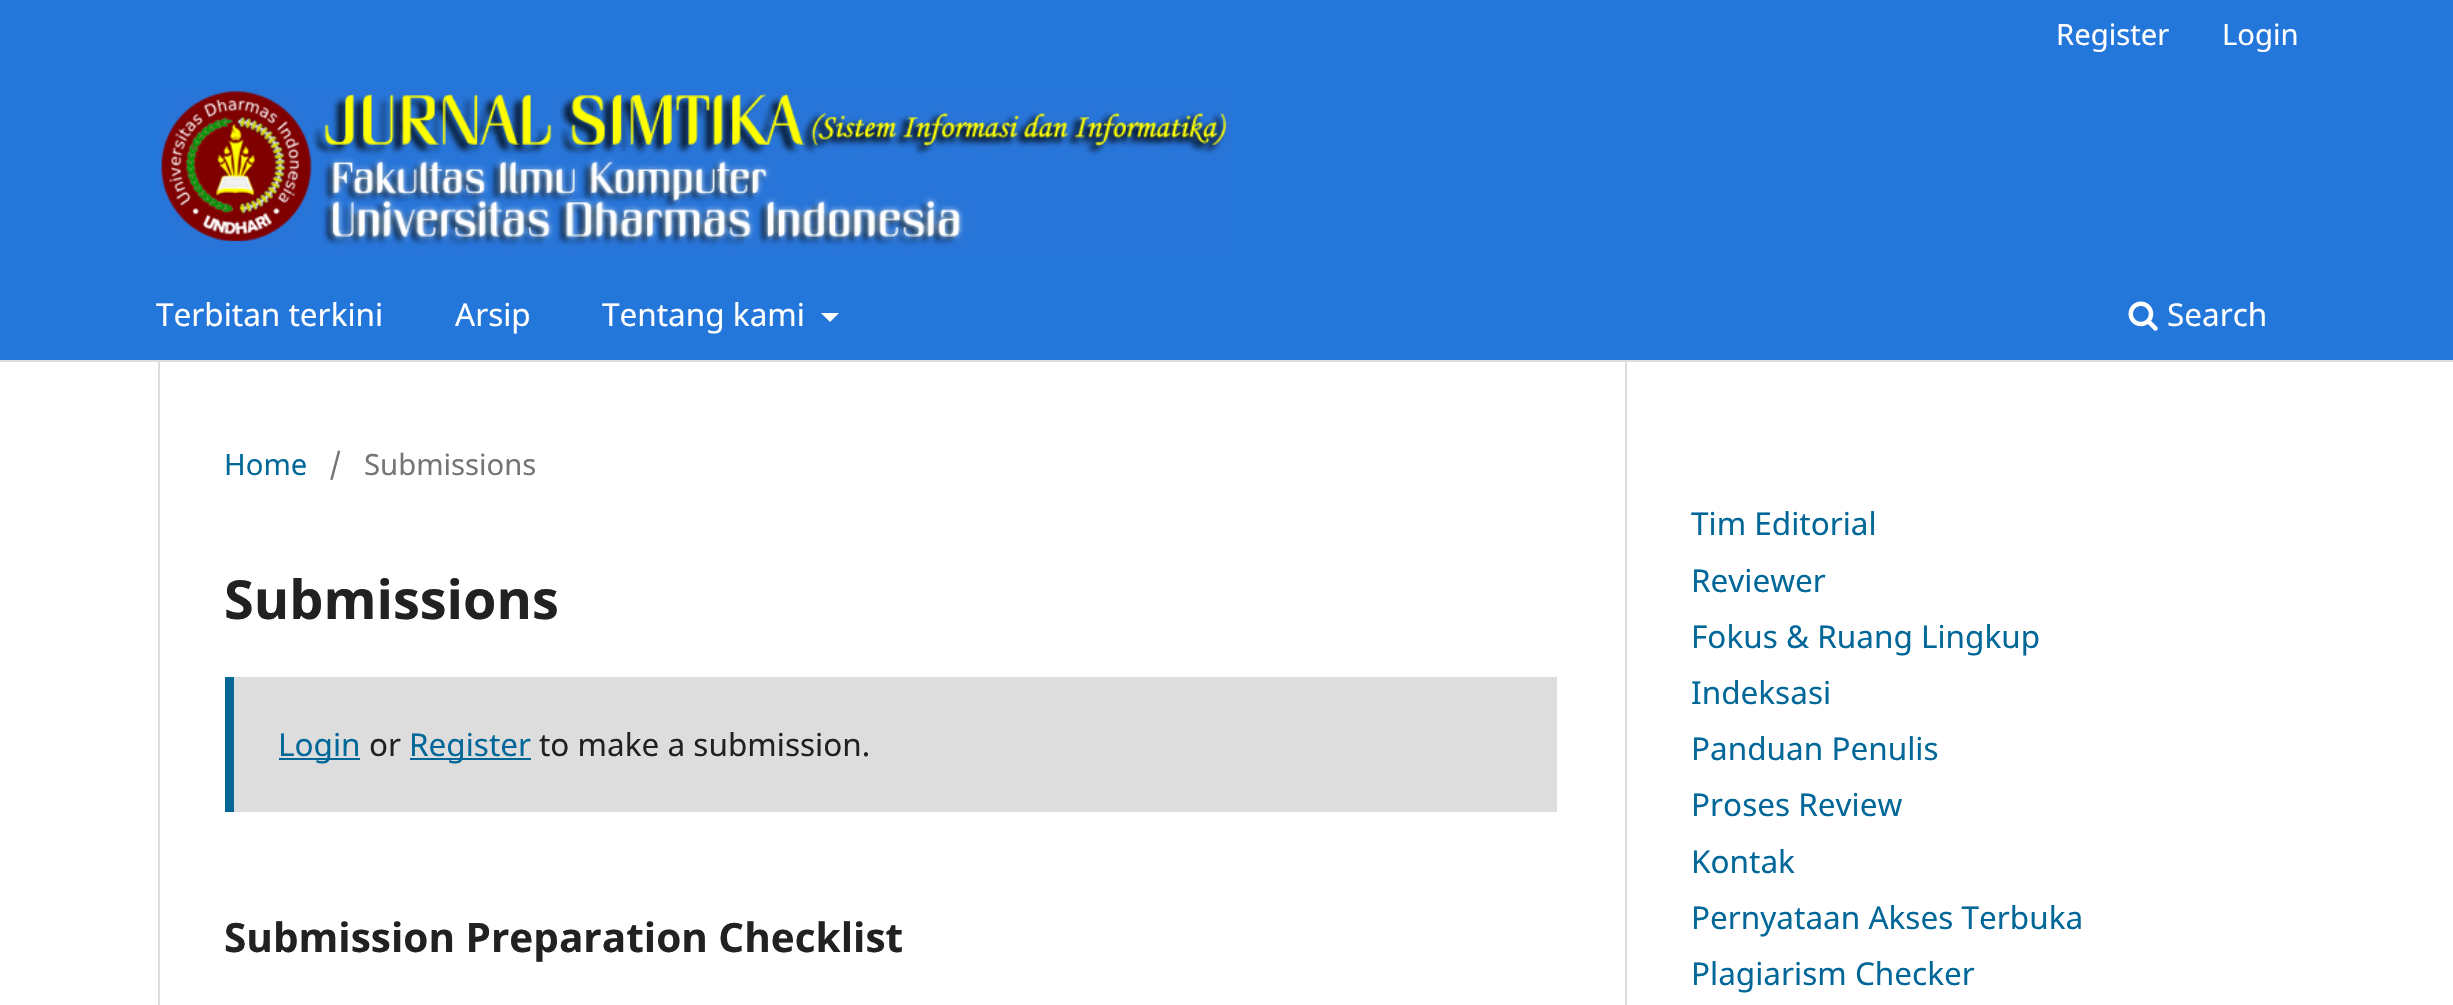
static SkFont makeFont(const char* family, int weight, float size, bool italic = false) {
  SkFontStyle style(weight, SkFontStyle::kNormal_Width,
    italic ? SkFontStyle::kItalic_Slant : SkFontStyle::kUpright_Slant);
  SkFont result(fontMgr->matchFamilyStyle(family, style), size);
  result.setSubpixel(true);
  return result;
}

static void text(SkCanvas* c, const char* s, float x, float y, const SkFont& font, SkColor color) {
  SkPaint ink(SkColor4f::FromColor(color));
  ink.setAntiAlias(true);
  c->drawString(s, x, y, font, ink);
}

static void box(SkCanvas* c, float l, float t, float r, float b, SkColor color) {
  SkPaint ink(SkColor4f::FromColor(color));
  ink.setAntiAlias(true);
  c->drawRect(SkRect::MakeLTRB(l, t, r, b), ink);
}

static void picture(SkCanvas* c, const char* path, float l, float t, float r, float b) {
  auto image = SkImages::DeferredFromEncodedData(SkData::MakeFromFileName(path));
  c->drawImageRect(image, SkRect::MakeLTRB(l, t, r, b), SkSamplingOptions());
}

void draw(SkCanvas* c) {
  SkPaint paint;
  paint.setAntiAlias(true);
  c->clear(0xffffffff);
  box(c, 0, 0, 2453, 360, 0xff2376da);
  box(c, 0, 360, 2453, 362, 0xffdddddd);
  SkFont face1 = makeFont("Noto Sans", 400, 29.25f);
  text(c, "Register", 2056, 45, face1, 0xffffffff);
  text(c, "Login", 2222, 45, face1, 0xffffffff);
  SkFont face2 = makeFont("Noto Sans", 400, 31.5f);
  text(c, "Terbitan terkini", 156, 326, face2, 0xffffffff);
  text(c, "Arsip", 455, 326, face2, 0xffffffff);
  text(c, "Tentang kami", 602, 326, face2, 0xffffffff);
  paint.setColor(0xffffffff);
  c->drawPath(SkPathBuilder().moveTo(821, 313).lineTo(839, 313).lineTo(830, 322).close().detach(), paint);
  picture(c, "img_01.png", 2128, 301, 2158, 331);
  text(c, "Search", 2167, 326, face2, 0xffffffff);
  picture(c, "img_02.png", 158, 89, 1233, 255);
  box(c, 158, 362, 160, 1005, 0xffdddddd);
  text(c, "Home", 224, 475, face1, 0xff006798);
  text(c, "/", 329, 475, face1, 0xff757575);
  text(c, "Submissions", 364, 475, face1, 0xff757575);
  SkFont face3 = makeFont("Noto Sans", 700, 54);
  text(c, "Submissions", 224, 619, face3, 0xff212121);
  box(c, 234, 677, 1557, 812, 0xffdddddd);
  box(c, 225, 677, 234, 812, 0xff006798);
  box(c, 279, 758, 360, 760, 0xff006798);
  text(c, "Login", 278, 756, face2, 0xff006798);
  text(c, "or", 369, 756, face2, 0xff212121);
  box(c, 410, 758, 531, 760, 0xff006798);
  text(c, "Register", 409, 756, face2, 0xff006798);
  text(c, "to make a submission.", 539, 756, face2, 0xff212121);
  SkFont face4 = makeFont("Noto Sans", 700, 40.5f);
  text(c, "Submission Preparation Checklist", 224, 952, face4, 0xff212121);
  box(c, 1625, 362, 1627, 1005, 0xffdddddd);
  text(c, "Tim Editorial", 1691, 535, face2, 0xff006798);
  text(c, "Reviewer", 1691, 592, face2, 0xff006798);
  text(c, "Fokus & Ruang Lingkup", 1691, 648, face2, 0xff006798);
  text(c, "Indeksasi", 1691, 704, face2, 0xff006798);
  text(c, "Panduan Penulis", 1691, 760, face2, 0xff006798);
  text(c, "Proses Review", 1691, 816, face2, 0xff006798);
  text(c, "Kontak", 1691, 873, face2, 0xff006798);
  text(c, "Pernyataan Akses Terbuka", 1691, 929, face2, 0xff006798);
  text(c, "Plagiarism Checker", 1691, 985, face2, 0xff006798);
}
